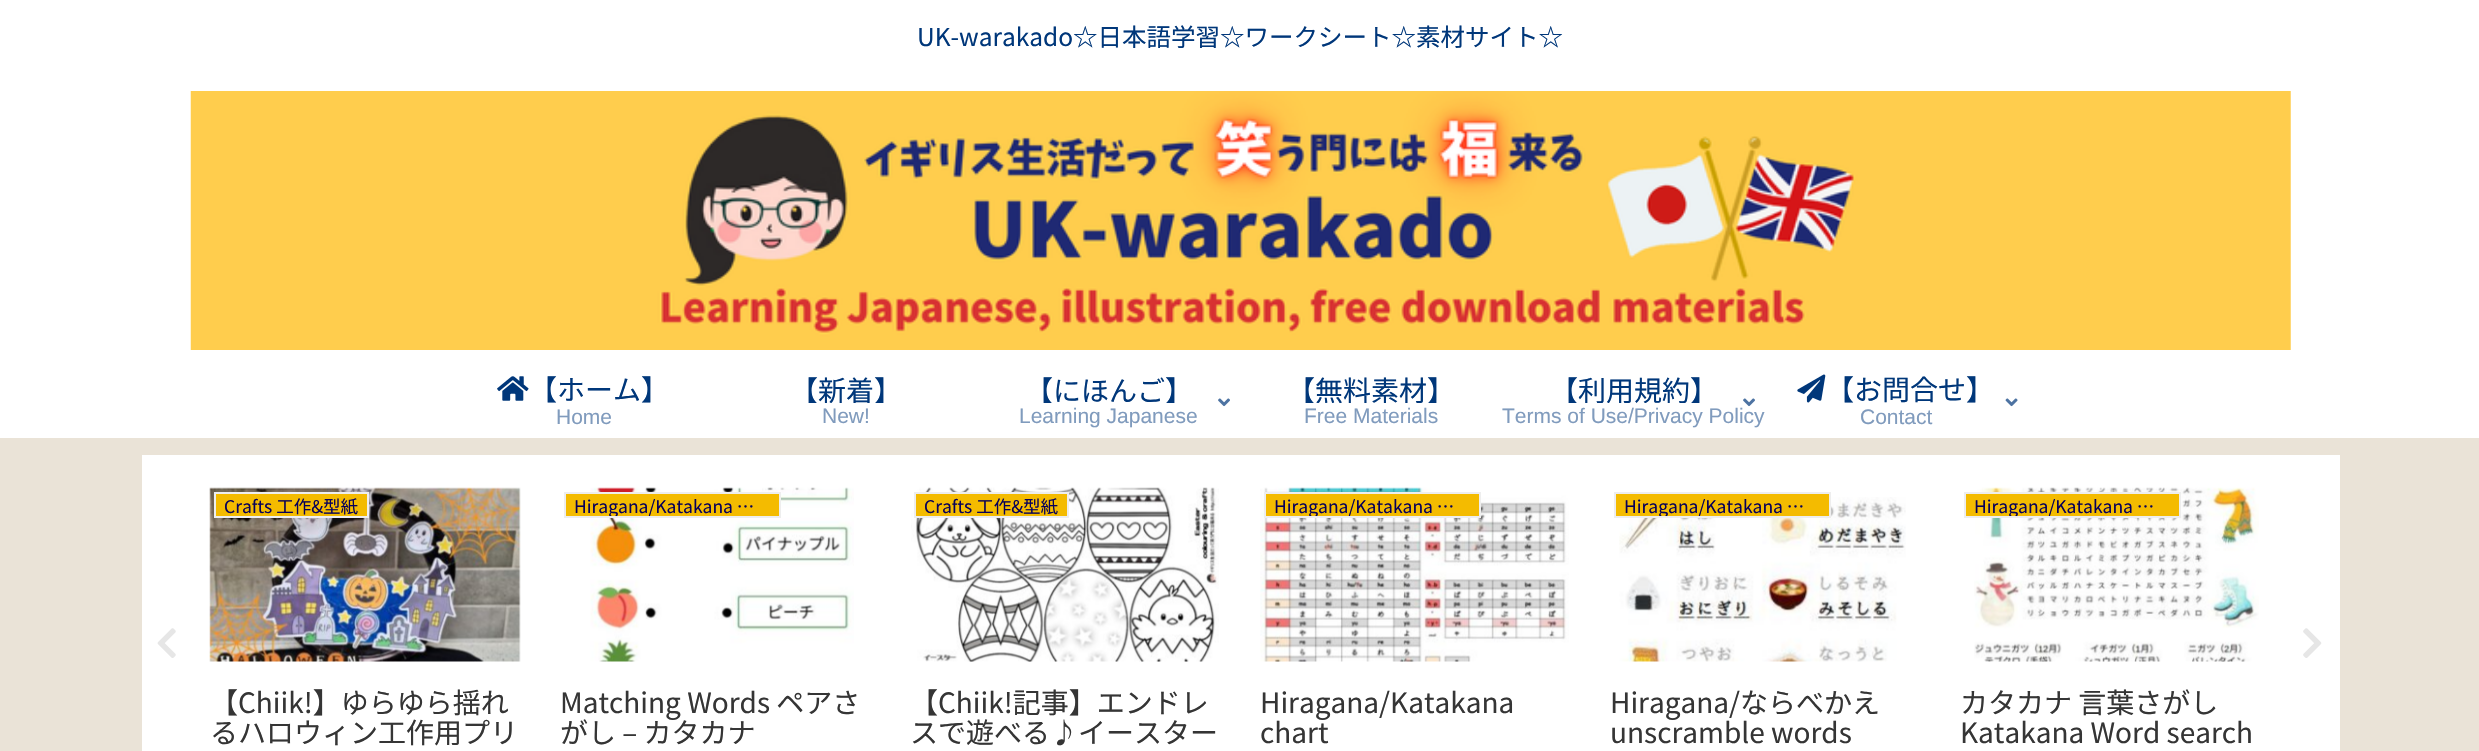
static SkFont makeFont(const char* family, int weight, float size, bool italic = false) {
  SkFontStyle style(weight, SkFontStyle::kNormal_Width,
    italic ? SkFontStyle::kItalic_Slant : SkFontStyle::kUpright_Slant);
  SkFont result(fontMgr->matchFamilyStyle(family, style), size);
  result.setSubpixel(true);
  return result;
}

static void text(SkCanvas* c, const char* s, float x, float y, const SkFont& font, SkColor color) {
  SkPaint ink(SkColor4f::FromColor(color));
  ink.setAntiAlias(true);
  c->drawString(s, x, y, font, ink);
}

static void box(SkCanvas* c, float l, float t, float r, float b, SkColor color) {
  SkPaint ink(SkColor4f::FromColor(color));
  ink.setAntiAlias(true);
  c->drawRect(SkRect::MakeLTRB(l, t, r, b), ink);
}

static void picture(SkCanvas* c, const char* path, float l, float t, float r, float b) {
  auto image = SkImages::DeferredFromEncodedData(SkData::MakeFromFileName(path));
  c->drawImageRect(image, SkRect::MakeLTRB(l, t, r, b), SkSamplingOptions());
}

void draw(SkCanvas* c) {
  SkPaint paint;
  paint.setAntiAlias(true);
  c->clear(0xffeae3d7);
  box(c, 0, 0, 2479, 438, 0xffffffff);
  SkFont face1 = makeFont("Noto Sans JP", 400, 24.5f);
  text(c, "UK-warakado☆日本語学習☆ワークシート☆素材サイト☆", 917, 46, face1, 0xff00377a);
  picture(c, "img_01.png", 190, 91, 2291, 350);
  picture(c, "img_02.png", 497, 376, 529, 401);
  SkFont face2 = makeFont("Noto Sans JP", 400, 28);
  text(c, "【ホーム】", 529, 400, face2, 0xff00377a);
  SkFont face3 = makeFont("Liberation Sans", 400, 21);
  text(c, "Home", 556, 424, face3, 0xff809bbd);
  c->save();
  c->clipRect(SkRect::MakeLTRB(716, 375, 978, 403));
  text(c, "【新着】", 790, 401, face2, 0xff00377a);
  c->restore();
  text(c, "New!", 822, 423, face3, 0xff809bbd);
  c->save();
  c->clipRect(SkRect::MakeLTRB(978, 375, 1241, 403));
  text(c, "【にほんご】", 1025, 401, face2, 0xff00377a);
  c->restore();
  text(c, "Learning Japanese", 1019, 423, face3, 0xff809bbd);
  picture(c, "img_03.png", 1218, 398, 1230, 407);
  c->save();
  c->clipRect(SkRect::MakeLTRB(1241, 375, 1503, 403));
  text(c, "【無料素材】", 1287, 401, face2, 0xff00377a);
  c->restore();
  text(c, "Free Materials", 1304, 423, face3, 0xff809bbd);
  c->save();
  c->clipRect(SkRect::MakeLTRB(1503, 375, 1766, 403));
  text(c, "【利用規約】", 1550, 401, face2, 0xff00377a);
  c->restore();
  text(c, "Terms of Use/Privacy Policy", 1502, 423, face3, 0xff809bbd);
  picture(c, "img_03.png", 1743, 398, 1755, 407);
  picture(c, "img_04.png", 1797, 374, 1826, 403);
  text(c, "【お問合せ】", 1826, 400, face2, 0xff00377a);
  text(c, "Contact", 1860, 424, face3, 0xff809bbd);
  picture(c, "img_05.png", 2005, 398, 2018, 407);
  box(c, 142, 455, 2340, 751, 0xffffffff);
  picture(c, "img_06.png", 157, 628, 176, 658);
  picture(c, "img_07.png", 209, 487, 521, 662);
  paint.setColor(0xfff4bb00);
  c->drawRect(SkRect::MakeLTRB(215, 493, 368, 517), paint);
  paint.setStyle(SkPaint::kStroke_Style);
  paint.setStrokeWidth(2);
  paint.setColor(0xffeeeeee);
  c->drawRect(SkRect::MakeLTRB(215, 493, 368, 517), paint);
  SkFont face4 = makeFont("Noto Sans JP", 400, 17.5f);
  text(c, "Crafts 工作&型紙", 224, 513, face4, 0xff070059);
  text(c, "【Chiik!】ゆらゆら揺れ", 210, 713, face2, 0xff353535);
  text(c, "るハロウィン工作用プリ", 210, 743, face2, 0xff353535);
  picture(c, "img_08.png", 590, 487, 854, 662);
  paint.setStyle(SkPaint::kFill_Style);
  paint.setColor(0xfff4bb00);
  c->drawRect(SkRect::MakeLTRB(565, 493, 780, 517), paint);
  paint.setStyle(SkPaint::kStroke_Style);
  paint.setColor(0xffeeeeee);
  c->drawRect(SkRect::MakeLTRB(565, 493, 780, 517), paint);
  c->save();
  c->clipRect(SkRect::MakeLTRB(565, 494, 779, 516));
  text(c, "Hiragana/Katakana …", 574, 513, face4, 0xff070059);
  c->restore();
  text(c, "Matching Words ペアさ", 560, 713, face2, 0xff353535);
  text(c, "がし – カタカナ", 560, 743, face2, 0xff353535);
  picture(c, "img_09.png", 911, 487, 1219, 662);
  paint.setStyle(SkPaint::kFill_Style);
  paint.setColor(0xfff4bb00);
  c->drawRect(SkRect::MakeLTRB(915, 493, 1068, 517), paint);
  paint.setStyle(SkPaint::kStroke_Style);
  paint.setColor(0xffeeeeee);
  c->drawRect(SkRect::MakeLTRB(915, 493, 1068, 517), paint);
  text(c, "Crafts 工作&型紙", 924, 513, face4, 0xff070059);
  text(c, "【Chiik!記事】エンドレ", 910, 713, face2, 0xff353535);
  text(c, "スで遊べる♪イースター", 910, 743, face2, 0xff353535);
  picture(c, "img_10.png", 1260, 487, 1569, 662);
  paint.setStyle(SkPaint::kFill_Style);
  paint.setColor(0xfff4bb00);
  c->drawRect(SkRect::MakeLTRB(1265, 493, 1480, 517), paint);
  paint.setStyle(SkPaint::kStroke_Style);
  paint.setColor(0xffeeeeee);
  c->drawRect(SkRect::MakeLTRB(1265, 493, 1480, 517), paint);
  c->save();
  c->clipRect(SkRect::MakeLTRB(1265, 494, 1479, 516));
  text(c, "Hiragana/Katakana …", 1274, 513, face4, 0xff070059);
  c->restore();
  text(c, "Hiragana/Katakana", 1260, 713, face2, 0xff353535);
  text(c, "chart", 1260, 743, face2, 0xff353535);
  picture(c, "img_11.png", 1619, 497, 1906, 662);
  paint.setStyle(SkPaint::kFill_Style);
  paint.setColor(0xfff4bb00);
  c->drawRect(SkRect::MakeLTRB(1615, 493, 1830, 517), paint);
  paint.setStyle(SkPaint::kStroke_Style);
  paint.setColor(0xffeeeeee);
  c->drawRect(SkRect::MakeLTRB(1615, 493, 1830, 517), paint);
  c->save();
  c->clipRect(SkRect::MakeLTRB(1615, 494, 1829, 516));
  text(c, "Hiragana/Katakana …", 1624, 513, face4, 0xff070059);
  c->restore();
  text(c, "Hiragana/ならべかえ", 1610, 713, face2, 0xff353535);
  text(c, "unscramble words", 1610, 743, face2, 0xff353535);
  picture(c, "img_12.png", 1974, 487, 2259, 662);
  paint.setStyle(SkPaint::kFill_Style);
  paint.setColor(0xfff4bb00);
  c->drawRect(SkRect::MakeLTRB(1965, 493, 2180, 517), paint);
  paint.setStyle(SkPaint::kStroke_Style);
  paint.setColor(0xffeeeeee);
  c->drawRect(SkRect::MakeLTRB(1965, 493, 2180, 517), paint);
  c->save();
  c->clipRect(SkRect::MakeLTRB(1965, 494, 2179, 516));
  text(c, "Hiragana/Katakana …", 1974, 513, face4, 0xff070059);
  c->restore();
  text(c, "カタカナ 言葉さがし", 1960, 713, face2, 0xff353535);
  text(c, "Katakana Word search", 1960, 743, face2, 0xff353535);
  picture(c, "img_13.png", 2303, 628, 2322, 658);
}
